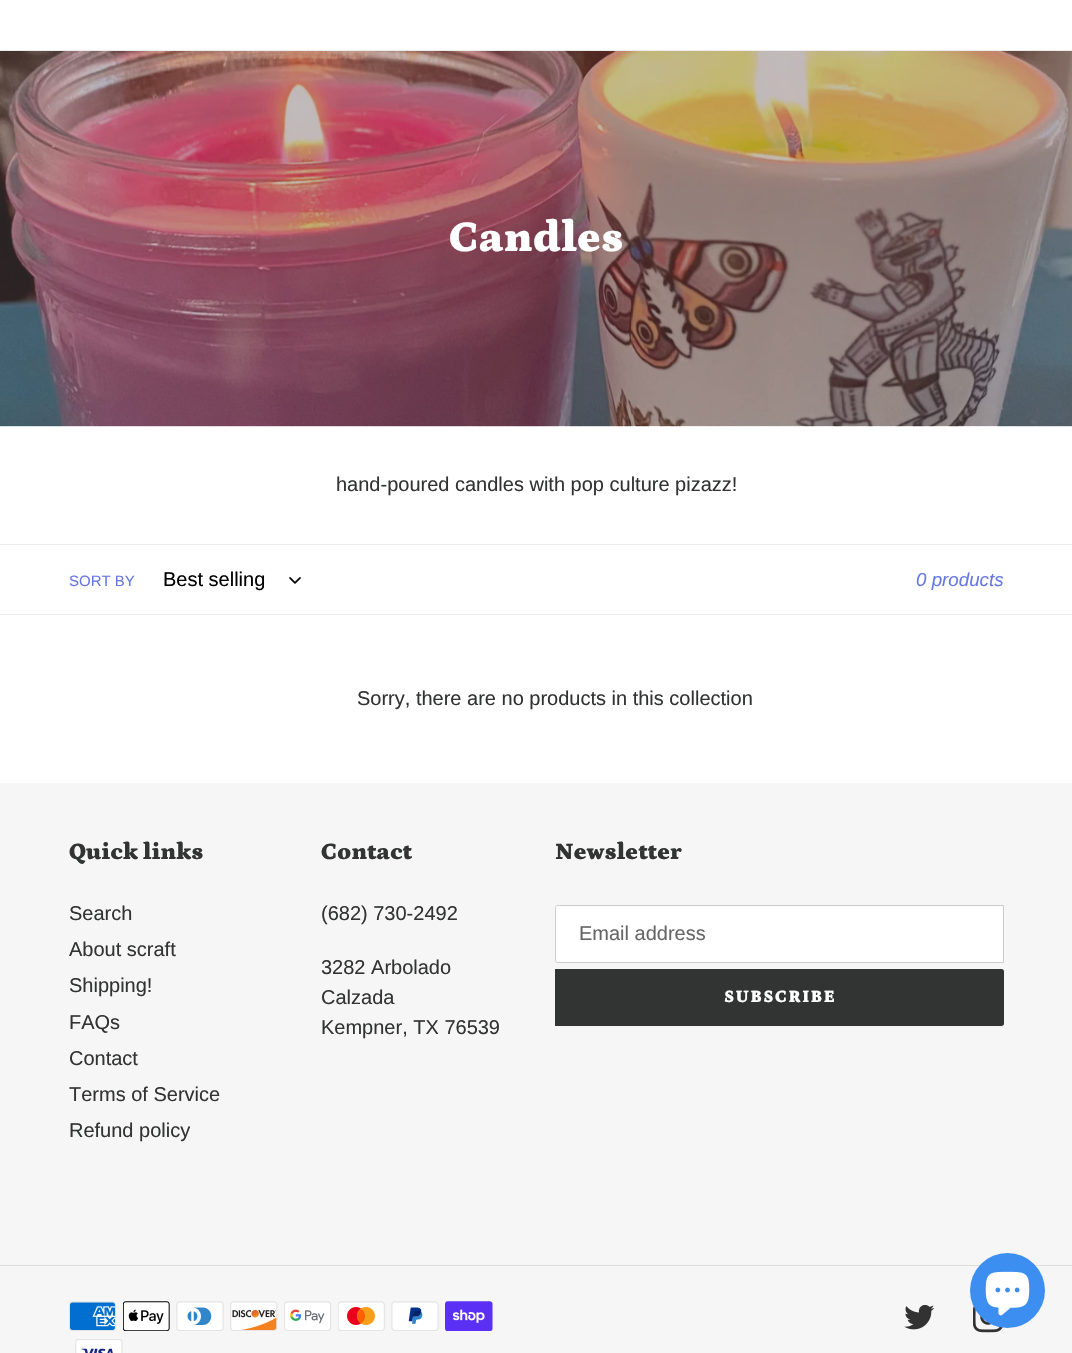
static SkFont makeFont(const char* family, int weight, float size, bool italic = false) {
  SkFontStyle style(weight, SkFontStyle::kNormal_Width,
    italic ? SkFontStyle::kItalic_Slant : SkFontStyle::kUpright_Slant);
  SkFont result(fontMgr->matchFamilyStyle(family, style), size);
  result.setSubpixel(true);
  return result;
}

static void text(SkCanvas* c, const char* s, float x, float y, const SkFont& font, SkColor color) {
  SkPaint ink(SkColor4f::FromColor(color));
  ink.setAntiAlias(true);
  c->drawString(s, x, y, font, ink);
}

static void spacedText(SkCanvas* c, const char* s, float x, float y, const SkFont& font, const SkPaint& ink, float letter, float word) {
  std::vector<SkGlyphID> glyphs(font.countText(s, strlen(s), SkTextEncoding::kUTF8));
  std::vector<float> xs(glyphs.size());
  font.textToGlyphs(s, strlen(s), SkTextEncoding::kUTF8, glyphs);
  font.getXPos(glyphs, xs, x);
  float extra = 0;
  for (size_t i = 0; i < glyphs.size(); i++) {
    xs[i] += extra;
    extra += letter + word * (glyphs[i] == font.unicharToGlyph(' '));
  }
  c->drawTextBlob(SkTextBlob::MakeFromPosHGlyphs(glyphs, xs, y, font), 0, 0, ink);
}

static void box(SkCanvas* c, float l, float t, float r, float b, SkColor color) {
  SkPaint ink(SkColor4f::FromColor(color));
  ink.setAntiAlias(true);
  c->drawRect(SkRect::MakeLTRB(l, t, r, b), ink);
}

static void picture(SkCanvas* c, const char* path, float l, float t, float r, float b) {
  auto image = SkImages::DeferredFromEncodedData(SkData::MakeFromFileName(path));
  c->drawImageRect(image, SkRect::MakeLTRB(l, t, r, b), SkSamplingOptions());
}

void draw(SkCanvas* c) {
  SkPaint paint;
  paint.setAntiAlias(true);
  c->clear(0xffffffff);
  box(c, 0, 50, 1072, 51, 0xffebebeb);
  picture(c, "img_01.png", 0, 51, 1072, 427);
  SkFont face1 = makeFont("Petrona", 900, 44);
  text(c, "Candles", 449, 251, face1, 0xffffffff);
  SkFont face2 = makeFont("Liberation Sans", 400, 20);
  text(c, "hand-poured candles with pop culture pizazz!", 336, 491, face2, 0xff323333);
  box(c, 0, 544, 1072, 545, 0xffebebeb);
  box(c, 0, 614, 1072, 615, 0xffebebeb);
  SkFont face3 = makeFont("Liberation Sans", 400, 15);
  text(c, "SORT BY", 69, 586, face3, 0xff6779e1);
  text(c, "Best selling", 163, 586, face2, 0xff000000);
  picture(c, "img_02.png", 289, 577, 301, 584);
  SkFont face4 = makeFont("Liberation Sans", 400, 18.75f, true);
  text(c, "0 products", 916, 586, face4, 0xff6779e1);
  text(c, "Sorry, there are no products in this collection", 357, 705, face2, 0xff323333);
  box(c, 0, 783, 1072, 1353, 0xfff6f6f6);
  SkFont face5 = makeFont("Petrona", 900, 23.75f);
  text(c, "Quick links", 69, 859, face5, 0xff323333);
  text(c, "Search", 69, 920, face2, 0xff323333);
  text(c, "About scraft", 69, 956, face2, 0xff323333);
  text(c, "Shipping!", 69, 992, face2, 0xff323333);
  text(c, "FAQs", 69, 1029, face2, 0xff323333);
  text(c, "Contact", 69, 1065, face2, 0xff323333);
  text(c, "Terms of Service", 69, 1101, face2, 0xff323333);
  text(c, "Refund policy", 69, 1137, face2, 0xff323333);
  text(c, "Contact", 321, 859, face5, 0xff323333);
  text(c, "(682) 730-2492", 321, 920, face2, 0xff323333);
  text(c, "3282 Arbolado", 321, 974, face2, 0xff323333);
  text(c, "Calzada", 321, 1004, face2, 0xff323333);
  text(c, "Kempner, TX 76539", 321, 1034, face2, 0xff323333);
  text(c, "Newsletter", 555, 859, face5, 0xff323333);
  paint.setColor(0xffffffff);
  c->drawPath(SkPathBuilder().moveTo(557.5f, 905.5f).lineTo(1003.5f, 905.5f).lineTo(1003.5f, 962.5f).lineTo(557.5f, 962.5f).cubicTo(556.5f, 962.5f, 555.5f, 961.5f, 555.5f, 960.5f).lineTo(555.5f, 907.5f).cubicTo(555.5f, 906.5f, 556.5f, 905.5f, 557.5f, 905.5f).close().detach(), paint);
  paint.setStyle(SkPaint::kStroke_Style);
  paint.setStrokeWidth(1);
  paint.setColor(0xffcccccc);
  c->drawPath(SkPathBuilder().moveTo(557.5f, 905.5f).lineTo(1003.5f, 905.5f).lineTo(1003.5f, 962.5f).lineTo(557.5f, 962.5f).cubicTo(556.5f, 962.5f, 555.5f, 961.5f, 555.5f, 960.5f).lineTo(555.5f, 907.5f).cubicTo(555.5f, 906.5f, 556.5f, 905.5f, 557.5f, 905.5f).close().detach(), paint);
  text(c, "Email address", 579, 940, face2, 0xff666666);
  paint.setStyle(SkPaint::kFill_Style);
  paint.setColor(0xff323333);
  c->drawPath(SkPathBuilder().moveTo(555, 969).lineTo(1001.5f, 969).cubicTo(1003, 969, 1004, 970, 1004, 971.5f).lineTo(1004, 1023.5f).cubicTo(1004, 1025, 1003, 1026, 1001.5f, 1026).lineTo(555, 1026).close().detach(), paint);
  SkFont face6 = makeFont("Petrona", 900, 17.5f);
  paint.setColor(0xffffffff);
  spacedText(c, "SUBSCRIBE", 724, 1002, face6, paint, 1.5f, 0);
  box(c, 0, 1265, 1072, 1266, 0xffdddddd);
  picture(c, "img_03.png", 69, 1301, 116, 1331);
  picture(c, "img_04.png", 123, 1301, 170, 1331);
  picture(c, "img_05.png", 176, 1301, 224, 1331);
  picture(c, "img_06.png", 230, 1301, 278, 1331);
  picture(c, "img_07.png", 284, 1301, 331, 1331);
  picture(c, "img_08.png", 338, 1301, 385, 1331);
  picture(c, "img_09.png", 391, 1301, 439, 1331);
  picture(c, "img_10.png", 445, 1301, 493, 1331);
  picture(c, "img_11.png", 75, 1339, 123, 1353);
  picture(c, "img_12.png", 904, 1304, 935, 1330);
  picture(c, "img_13.png", 973, 1306, 1003, 1333);
  paint.setColor(0xff3d8ef1);
  c->drawCircle(1007.5f, 1290.5f, 37.5f, paint);
  picture(c, "img_14.png", 985, 1271, 1030, 1316);
}
